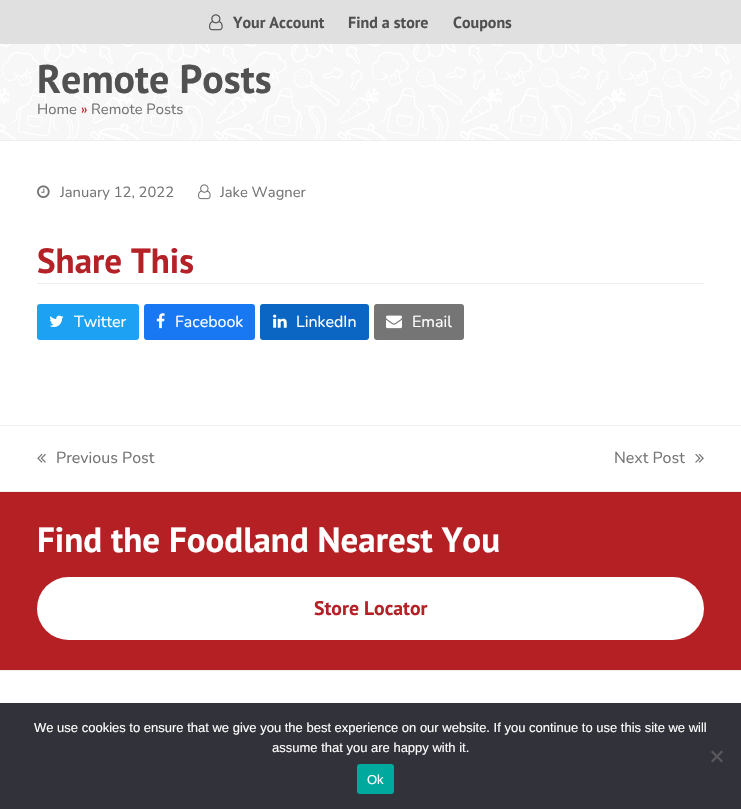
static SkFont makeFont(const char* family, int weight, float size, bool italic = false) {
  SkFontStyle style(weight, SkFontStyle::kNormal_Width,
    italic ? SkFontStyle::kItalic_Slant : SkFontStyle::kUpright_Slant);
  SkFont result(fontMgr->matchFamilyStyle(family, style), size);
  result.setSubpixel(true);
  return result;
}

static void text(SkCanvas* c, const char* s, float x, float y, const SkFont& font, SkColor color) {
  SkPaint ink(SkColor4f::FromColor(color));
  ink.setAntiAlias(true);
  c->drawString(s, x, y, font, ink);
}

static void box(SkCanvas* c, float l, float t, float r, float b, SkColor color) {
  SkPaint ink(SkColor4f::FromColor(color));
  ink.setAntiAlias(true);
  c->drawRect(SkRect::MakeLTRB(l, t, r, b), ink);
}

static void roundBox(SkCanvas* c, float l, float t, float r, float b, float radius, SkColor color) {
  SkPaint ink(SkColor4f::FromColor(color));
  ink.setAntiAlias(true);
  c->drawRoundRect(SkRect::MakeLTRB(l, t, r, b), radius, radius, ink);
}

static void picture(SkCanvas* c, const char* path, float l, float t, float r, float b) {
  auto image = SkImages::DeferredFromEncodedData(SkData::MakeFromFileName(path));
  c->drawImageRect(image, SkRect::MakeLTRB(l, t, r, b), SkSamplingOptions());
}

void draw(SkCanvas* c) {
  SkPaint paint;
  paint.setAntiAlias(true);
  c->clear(0xffffffff);
  box(c, 0, 0, 741, 44, 0xffe0e0e0);
  picture(c, "img_01.png", 209, 14, 223, 31);
  SkFont face1 = makeFont("PT Sans", 700, 16);
  text(c, "Your Account", 233, 28, face1, 0xff515151);
  text(c, "Find a store", 348, 28, face1, 0xff515151);
  text(c, "Coupons", 453, 28, face1, 0xff515151);
  box(c, 0, 44, 741, 140, 0xfff7f7f7);
  picture(c, "img_02.png", 0, 44, 740, 140);
  box(c, 0, 140, 741, 141, 0xffeeeeee);
  SkFont face2 = makeFont("PT Sans", 700, 40);
  text(c, "Remote Posts", 37, 93, face2, 0xff515151);
  SkFont face3 = makeFont("Nunito", 400, 14.75f);
  text(c, "Home", 37, 114, face3, 0xff757575);
  text(c, "»", 81, 114, face3, 0xffb42126);
  text(c, "Remote Posts", 91, 114, face3, 0xff757575);
  picture(c, "img_03.png", 37, 185, 50, 198);
  text(c, "January 12, 2022", 60, 197, face3, 0xff757575);
  picture(c, "img_04.png", 198, 184, 211, 200);
  text(c, "Jake Wagner", 220, 197, face3, 0xff757575);
  box(c, 37, 283, 704, 284, 0xffeeeeee);
  SkFont face4 = makeFont("PT Sans", 700, 35);
  text(c, "Share This", 37, 273, face4, 0xffb42126);
  roundBox(c, 37, 304, 139, 340, 3, 0xff1da1f2);
  picture(c, "img_05.png", 49, 315, 64, 327);
  SkFont face5 = makeFont("Nunito", 400, 16);
  text(c, "Twitter", 74, 327, face5, 0xffffffff);
  roundBox(c, 144, 304, 255, 340, 3, 0xff1877f2);
  picture(c, "img_06.png", 156, 313, 165, 329);
  text(c, "Facebook", 175, 327, face5, 0xffffffff);
  roundBox(c, 260, 304, 369, 340, 3, 0xff0a66c2);
  picture(c, "img_07.png", 273, 314, 287, 328);
  text(c, "LinkedIn", 296, 327, face5, 0xffffffff);
  roundBox(c, 374, 304, 464, 340, 3, 0xff757575);
  picture(c, "img_08.png", 386, 315, 402, 329);
  text(c, "Email", 412, 327, face5, 0xffffffff);
  box(c, 0, 425, 741, 426, 0xffeeeeee);
  picture(c, "img_09.png", 37, 453, 46, 463);
  text(c, "Previous Post", 56, 463, face5, 0xff757575);
  text(c, "Next Post", 614, 463, face5, 0xff757575);
  picture(c, "img_10.png", 695, 453, 704, 463);
  box(c, 0, 492, 741, 670, 0xffb52025);
  box(c, 0, 491, 741, 492, 0xffeeeeee);
  box(c, 0, 670, 741, 671, 0xffeeeeee);
  text(c, "Find the Foodland Nearest You", 37, 552, face4, 0xffffffff);
  roundBox(c, 37, 577, 704, 640, 31.5f, 0xffffffff);
  SkFont face6 = makeFont("PT Sans", 700, 19.75f);
  text(c, "Store Locator", 314, 615, face6, 0xffb42126);
  box(c, 0, 703, 741, 809, 0xff32323a);
  SkFont face7 = makeFont("Liberation Sans", 400, 13);
  text(c, "We use cookies to ensure that we give you the best experience on our website. If you continue to use this site we will", 34, 732, face7, 0xffffffff);
  text(c, "assume that you are happy with it.", 272, 752, face7, 0xffffffff);
  paint.setColor(0xff59595d);
  c->drawPath(SkPathBuilder().moveTo(721.5f, 750.5f).lineTo(723, 752).lineTo(712.5f, 762.5f).lineTo(711, 761).close().detach(), paint);
  c->drawPath(SkPathBuilder().moveTo(711, 752).lineTo(712.5f, 750.5f).lineTo(723, 761).lineTo(721.5f, 762.5f).close().detach(), paint);
  roundBox(c, 357, 764, 394, 794, 3, 0xff00a99d);
  text(c, "Ok", 367, 784, face7, 0xffffffff);
}
